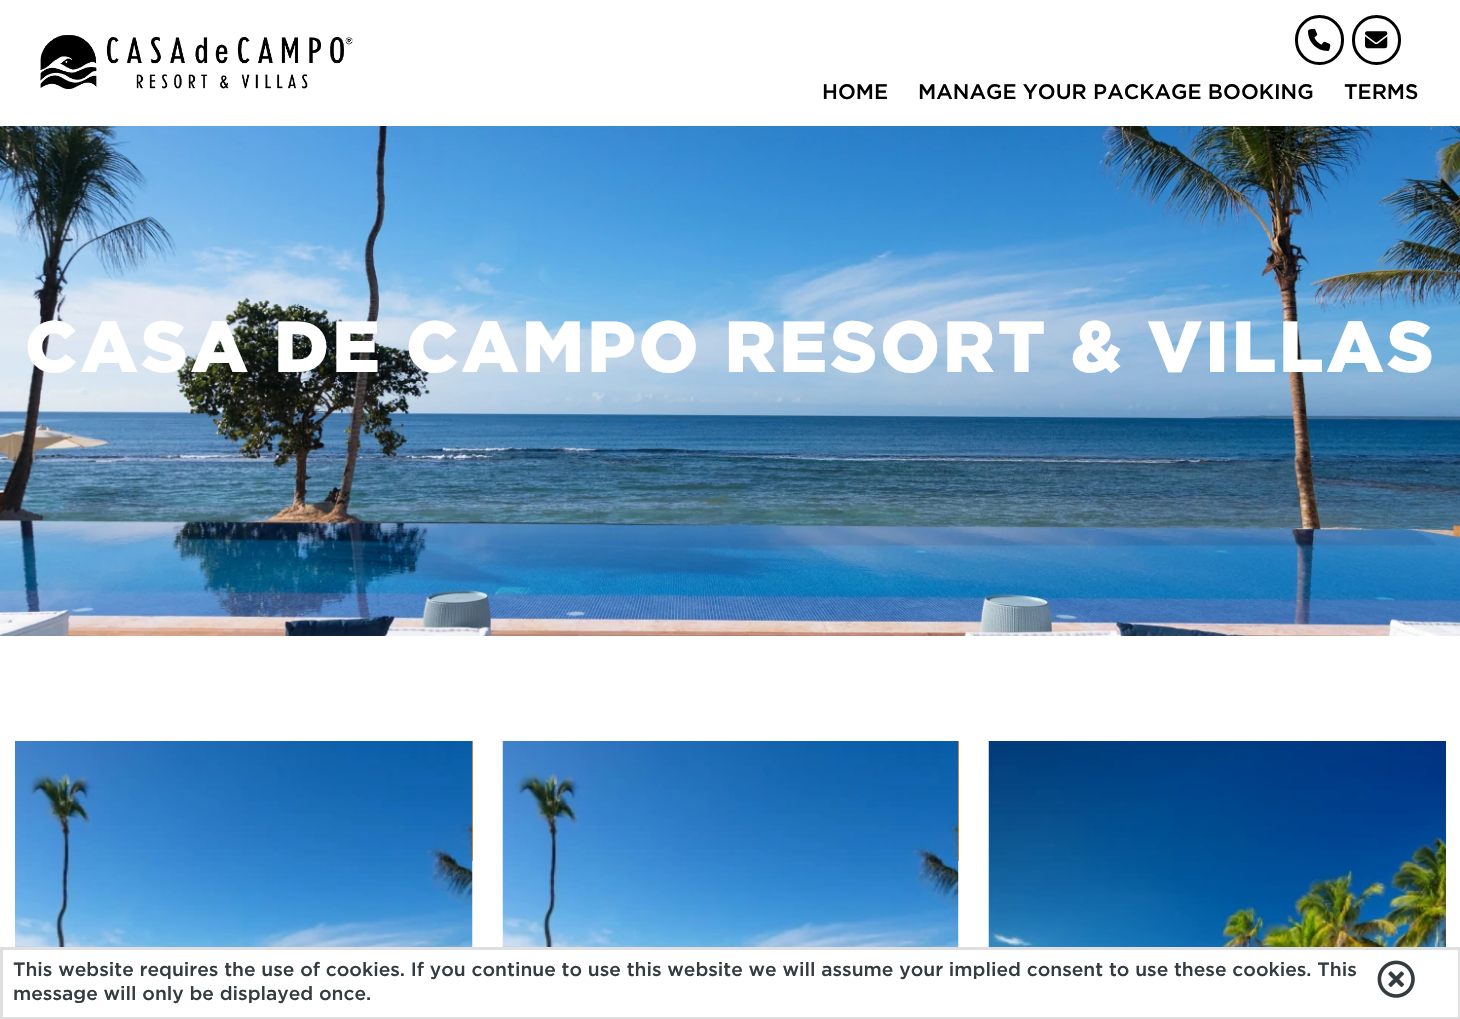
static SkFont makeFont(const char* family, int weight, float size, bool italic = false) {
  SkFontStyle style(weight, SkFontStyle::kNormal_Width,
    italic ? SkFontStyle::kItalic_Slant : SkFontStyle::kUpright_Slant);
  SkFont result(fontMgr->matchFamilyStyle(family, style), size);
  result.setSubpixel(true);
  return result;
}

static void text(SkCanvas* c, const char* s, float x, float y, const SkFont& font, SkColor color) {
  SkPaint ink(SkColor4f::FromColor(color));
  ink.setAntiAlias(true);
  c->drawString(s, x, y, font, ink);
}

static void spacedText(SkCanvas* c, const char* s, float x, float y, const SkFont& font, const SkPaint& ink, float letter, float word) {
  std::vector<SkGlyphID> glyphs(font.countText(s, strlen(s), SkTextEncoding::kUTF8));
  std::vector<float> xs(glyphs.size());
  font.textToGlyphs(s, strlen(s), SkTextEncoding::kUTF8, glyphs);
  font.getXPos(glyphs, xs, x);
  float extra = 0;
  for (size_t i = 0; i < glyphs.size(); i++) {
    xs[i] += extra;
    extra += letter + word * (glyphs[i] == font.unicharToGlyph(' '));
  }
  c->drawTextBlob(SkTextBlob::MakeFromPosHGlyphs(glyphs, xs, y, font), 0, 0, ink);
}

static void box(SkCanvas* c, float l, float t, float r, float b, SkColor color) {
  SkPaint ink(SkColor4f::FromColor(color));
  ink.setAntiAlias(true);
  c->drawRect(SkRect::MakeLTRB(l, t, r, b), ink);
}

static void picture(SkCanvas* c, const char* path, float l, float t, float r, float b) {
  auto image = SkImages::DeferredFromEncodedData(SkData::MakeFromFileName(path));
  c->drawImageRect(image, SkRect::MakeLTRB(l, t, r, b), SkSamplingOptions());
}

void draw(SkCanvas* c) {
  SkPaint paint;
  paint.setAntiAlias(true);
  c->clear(0xffffffff);
  picture(c, "img_01.png", 40, 35, 353, 89);
  paint.setStyle(SkPaint::kStroke_Style);
  paint.setStrokeWidth(3);
  paint.setColor(0xff000000);
  c->drawRoundRect(SkRect::MakeLTRB(1296.5f, 16.5f, 1342.5f, 63.5f), 23, 23, paint);
  picture(c, "img_02.png", 1308, 29, 1331, 51);
  c->drawRoundRect(SkRect::MakeLTRB(1353.5f, 16.5f, 1399.5f, 63.5f), 23, 23, paint);
  picture(c, "img_03.png", 1365, 31, 1388, 49);
  SkFont face1 = makeFont("Gotham", 500, 21);
  text(c, "HOME", 822, 99, face1, 0xff000000);
  text(c, "MANAGE YOUR PACKAGE BOOKING", 918, 99, face1, 0xff000000);
  text(c, "TERMS", 1344, 99, face1, 0xff000000);
  picture(c, "img_04.png", 0, 126, 1460, 636);
  SkFont face2 = makeFont("Gotham", 900, 72);
  paint.setStyle(SkPaint::kFill_Style);
  paint.setColor(0xffffffff);
  spacedText(c, "CASA DE CAMPO RESORT & VILLAS", 25, 372, face2, paint, 3, 0);
  box(c, 472, 741, 473, 861, 0xfff8961f);
  picture(c, "img_05.png", 15, 741, 473, 947);
  box(c, 958, 741, 959, 861, 0xfff8961f);
  picture(c, "img_06.png", 502, 741, 959, 947);
  picture(c, "img_07.png", 988, 741, 1446, 947);
  paint.setStyle(SkPaint::kStroke_Style);
  paint.setColor(0xffdfdfdf);
  c->drawRect(SkRect::MakeLTRB(1.5f, 948.5f, 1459.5f, 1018.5f), paint);
  SkFont face3 = makeFont("Gotham", 500, 19.2f);
  text(c, "This website requires the use of cookies. If you continue to use this website we will assume your implied consent to use these cookies. This", 13, 976, face3, 0xff353c3f);
  text(c, "message will only be displayed once.", 13, 1000, face3, 0xff353c3f);
  picture(c, "img_08.png", 1377, 960, 1415, 998);
}
